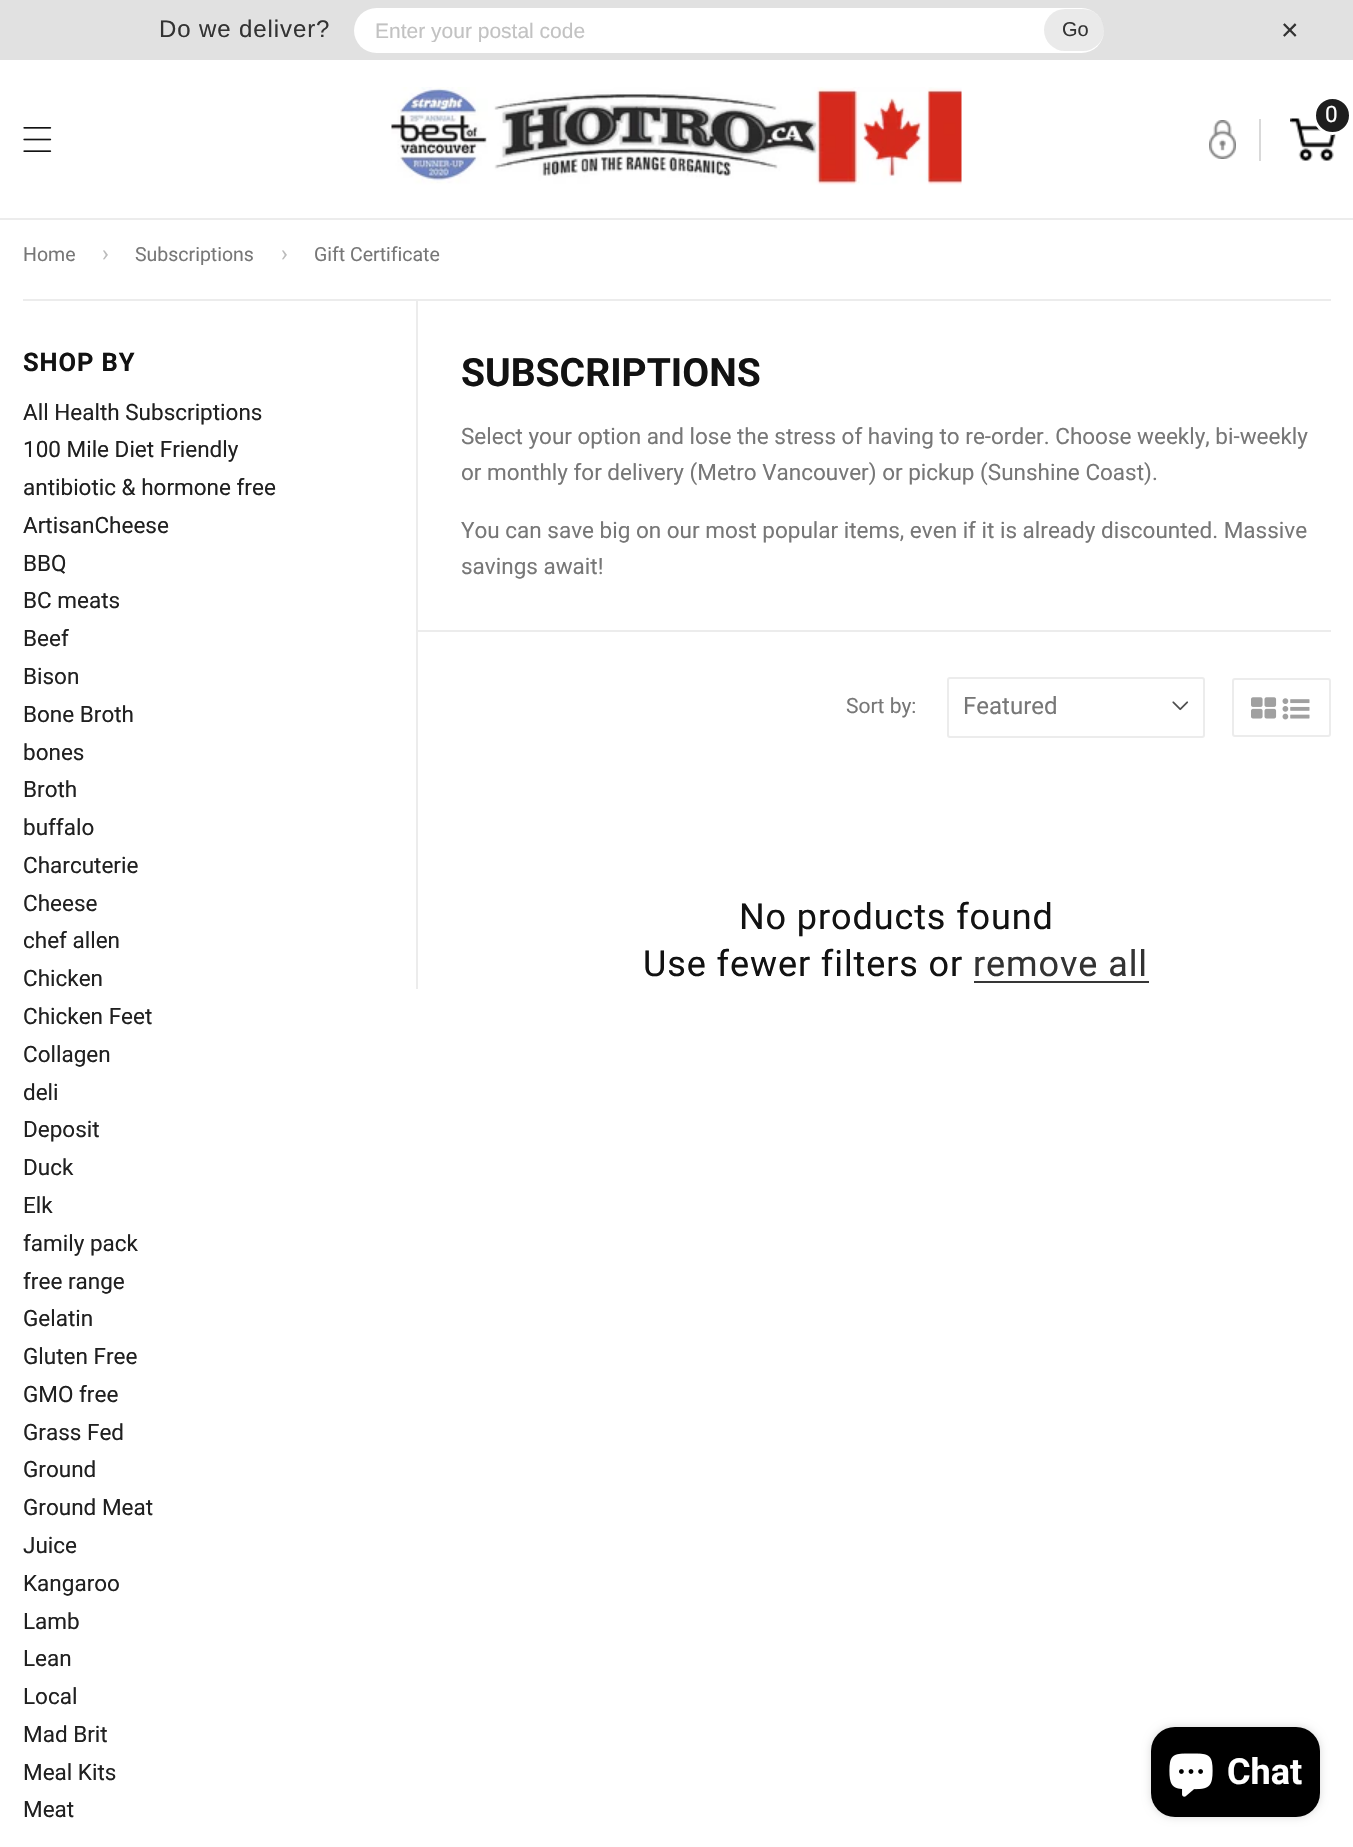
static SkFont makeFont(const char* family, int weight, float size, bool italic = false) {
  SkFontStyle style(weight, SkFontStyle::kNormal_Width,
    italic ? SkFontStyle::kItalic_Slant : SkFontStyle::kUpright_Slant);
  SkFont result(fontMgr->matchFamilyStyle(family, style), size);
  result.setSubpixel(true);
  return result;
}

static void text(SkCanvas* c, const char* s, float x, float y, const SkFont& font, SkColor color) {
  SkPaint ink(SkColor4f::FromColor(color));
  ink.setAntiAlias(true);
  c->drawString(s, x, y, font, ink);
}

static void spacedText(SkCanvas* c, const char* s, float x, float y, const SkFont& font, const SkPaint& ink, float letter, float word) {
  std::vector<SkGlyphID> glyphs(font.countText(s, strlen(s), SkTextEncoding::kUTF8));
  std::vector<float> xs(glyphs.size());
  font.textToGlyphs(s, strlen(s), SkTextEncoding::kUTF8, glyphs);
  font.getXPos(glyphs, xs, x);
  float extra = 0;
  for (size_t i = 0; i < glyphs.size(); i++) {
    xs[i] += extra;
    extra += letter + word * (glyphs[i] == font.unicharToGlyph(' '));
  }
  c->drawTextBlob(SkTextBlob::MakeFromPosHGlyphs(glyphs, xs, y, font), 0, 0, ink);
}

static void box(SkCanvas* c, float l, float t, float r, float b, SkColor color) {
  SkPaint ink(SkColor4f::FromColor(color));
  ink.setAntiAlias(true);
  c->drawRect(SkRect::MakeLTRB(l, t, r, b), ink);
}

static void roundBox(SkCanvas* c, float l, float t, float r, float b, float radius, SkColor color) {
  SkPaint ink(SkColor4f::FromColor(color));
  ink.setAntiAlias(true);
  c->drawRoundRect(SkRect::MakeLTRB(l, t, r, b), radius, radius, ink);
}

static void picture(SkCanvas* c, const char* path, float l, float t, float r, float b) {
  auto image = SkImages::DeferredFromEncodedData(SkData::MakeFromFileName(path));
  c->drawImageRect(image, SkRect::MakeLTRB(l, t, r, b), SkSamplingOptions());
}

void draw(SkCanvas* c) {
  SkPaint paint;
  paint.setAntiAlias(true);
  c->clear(0xffffffff);
  box(c, 0, 0, 1353, 60, 0xffe1e1e1);
  SkFont face1 = makeFont("Liberation Sans", 400, 24);
  paint.setColor(0xff333333);
  spacedText(c, "Do we deliver?", 159, 37, face1, paint, 0.9f, 0);
  roundBox(c, 354, 8, 1104, 53, 22.5f, 0xffffffff);
  c->save();
  c->clipRect(SkRect::MakeLTRB(375, 18, 1023, 42));
  SkFont face2 = makeFont("Liberation Sans", 400, 21);
  text(c, "Enter your postal code", 375, 38, face2, 0xffc2c2c2);
  c->restore();
  roundBox(c, 1044, 9, 1104, 51, 21, 0x1a333333);
  SkFont face3 = makeFont("Liberation Sans", 400, 20);
  text(c, "Go", 1062, 36, face3, 0xff333333);
  SkFont face4 = makeFont("Liberation Sans", 400, 30);
  text(c, "×", 1281, 40, face4, 0xff333333);
  box(c, 0, 218, 1353, 220, 0xffececec);
  picture(c, "img_01.png", 391, 87, 962, 185);
  picture(c, "img_02.png", 1290, 118, 1336, 161);
  paint.setColor(0xff1e1e1e);
  c->drawCircle(1332.5f, 115.5f, 18, paint);
  paint.setStyle(SkPaint::kStroke_Style);
  paint.setStrokeWidth(3);
  paint.setColor(0xffffffff);
  c->drawCircle(1332.5f, 115.5f, 18, paint);
  SkFont face5 = makeFont("Roboto", 400, 22.5f);
  paint.setStyle(SkPaint::kFill_Style);
  spacedText(c, "0", 1325, 122, face5, paint, 0.9f, 0);
  box(c, 1259, 119, 1261, 161, 0xffd9d9d9);
  picture(c, "img_03.png", 1209, 120, 1236, 159);
  picture(c, "img_04.png", 23, 127, 52, 152);
  box(c, 416, 630, 1331, 632, 0xffececec);
  box(c, 416, 300, 418, 989, 0xffececec);
  box(c, 23, 299, 1331, 301, 0xffececec);
  SkFont face6 = makeFont("Roboto", 400, 19.5f);
  text(c, "Home", 23, 261, face6, 0xff777777);
  text(c, "›", 102, 261, face5, 0xffbbbbbb);
  text(c, "Subscriptions", 135, 261, face6, 0xff777777);
  text(c, "›", 281, 261, face5, 0xffbbbbbb);
  text(c, "Gift Certificate", 314, 261, face6, 0xff777777);
  SkFont face7 = makeFont("Roboto", 700, 25.5f);
  paint.setColor(0xff121212);
  spacedText(c, "SHOP BY", 23, 371, face7, paint, 0.9f, 0);
  text(c, "All Health Subscriptions", 23, 420, face5, 0xff202020);
  text(c, "100 Mile Diet Friendly", 23, 457, face5, 0xff202020);
  text(c, "antibiotic & hormone free", 23, 495, face5, 0xff202020);
  text(c, "ArtisanCheese", 23, 533, face5, 0xff202020);
  text(c, "BBQ", 23, 571, face5, 0xff202020);
  text(c, "BC meats", 23, 608, face5, 0xff202020);
  text(c, "Beef", 23, 646, face5, 0xff202020);
  text(c, "Bison", 23, 684, face5, 0xff202020);
  text(c, "Bone Broth", 23, 722, face5, 0xff202020);
  text(c, "bones", 23, 760, face5, 0xff202020);
  text(c, "Broth", 23, 797, face5, 0xff202020);
  text(c, "buffalo", 23, 835, face5, 0xff202020);
  text(c, "Charcuterie", 23, 873, face5, 0xff202020);
  text(c, "Cheese", 23, 911, face5, 0xff202020);
  text(c, "chef allen", 23, 948, face5, 0xff202020);
  text(c, "Chicken", 23, 986, face5, 0xff202020);
  text(c, "Chicken Feet", 23, 1024, face5, 0xff202020);
  text(c, "Collagen", 23, 1062, face5, 0xff202020);
  text(c, "deli", 23, 1100, face5, 0xff202020);
  text(c, "Deposit", 23, 1137, face5, 0xff202020);
  text(c, "Duck", 23, 1175, face5, 0xff202020);
  text(c, "Elk", 23, 1213, face5, 0xff202020);
  text(c, "family pack", 23, 1251, face5, 0xff202020);
  text(c, "free range", 23, 1289, face5, 0xff202020);
  text(c, "Gelatin", 23, 1326, face5, 0xff202020);
  text(c, "Gluten Free", 23, 1364, face5, 0xff202020);
  text(c, "GMO free", 23, 1402, face5, 0xff202020);
  text(c, "Grass Fed", 23, 1440, face5, 0xff202020);
  text(c, "Ground", 23, 1477, face5, 0xff202020);
  text(c, "Ground Meat", 23, 1515, face5, 0xff202020);
  text(c, "Juice", 23, 1553, face5, 0xff202020);
  text(c, "Kangaroo", 23, 1591, face5, 0xff202020);
  text(c, "Lamb", 23, 1629, face5, 0xff202020);
  text(c, "Lean", 23, 1666, face5, 0xff202020);
  text(c, "Local", 23, 1704, face5, 0xff202020);
  text(c, "Mad Brit", 23, 1742, face5, 0xff202020);
  text(c, "Meal Kits", 23, 1780, face5, 0xff202020);
  text(c, "Meat", 23, 1817, face5, 0xff202020);
  SkFont face8 = makeFont("Roboto", 700, 39);
  text(c, "SUBSCRIPTIONS", 461, 386, face8, 0xff121212);
  text(c, "Select your option and lose the stress of having to re-order. Choose weekly, bi-weekly", 461, 444, face5, 0xff777777);
  text(c, "or monthly for delivery (Metro Vancouver) or pickup (Sunshine Coast).", 461, 480, face5, 0xff777777);
  text(c, "You can save big on our most popular items, even if it is already discounted. Massive", 461, 538, face5, 0xff777777);
  text(c, "savings await!", 461, 574, face5, 0xff777777);
  SkFont face9 = makeFont("Roboto", 400, 21);
  text(c, "Sort by:", 846, 713, face9, 0xff777777);
  paint.setStyle(SkPaint::kStroke_Style);
  paint.setStrokeWidth(2);
  paint.setColor(0xffececec);
  c->drawRoundRect(SkRect::MakeLTRB(948, 678, 1204, 737), 2, 2, paint);
  SkFont face10 = makeFont("Roboto", 400, 24);
  text(c, "Featured", 963, 714, face10, 0xff777777);
  picture(c, "img_05.png", 1172, 701, 1189, 711);
  c->drawRoundRect(SkRect::MakeLTRB(1233, 679, 1330, 736), 2, 2, paint);
  picture(c, "img_06.png", 1251, 697, 1277, 719);
  picture(c, "img_07.png", 1282, 698, 1310, 720);
  SkFont face11 = makeFont("Roboto", 400, 36);
  paint.setStyle(SkPaint::kFill_Style);
  paint.setColor(0xff121212);
  spacedText(c, "No products found", 739, 929, face11, paint, 0.9f, 0);
  spacedText(c, "Use fewer filters or", 643, 976, face11, paint, 0.9f, 0);
  paint.setColor(0xff333333);
  spacedText(c, "remove all", 973, 976, face11, paint, 0.9f, 0);
  box(c, 974, 981, 1149, 983, 0xff363636);
  paint.setColor(0x26000000);
  paint.setMaskFilter(SkMaskFilter::MakeBlur(kNormal_SkBlurStyle, 4));
  c->drawRoundRect(SkRect::MakeLTRB(1151, 1727, 1320, 1817), 24, 24, paint);
  paint.setMaskFilter(nullptr);
  roundBox(c, 1151, 1727, 1320, 1817, 24, 0xff000000);
  picture(c, "img_08.png", 1169, 1753, 1213, 1797);
  SkFont face12 = makeFont("Roboto", 700, 36);
  text(c, "Chat", 1227, 1784, face12, 0xffffffff);
}
